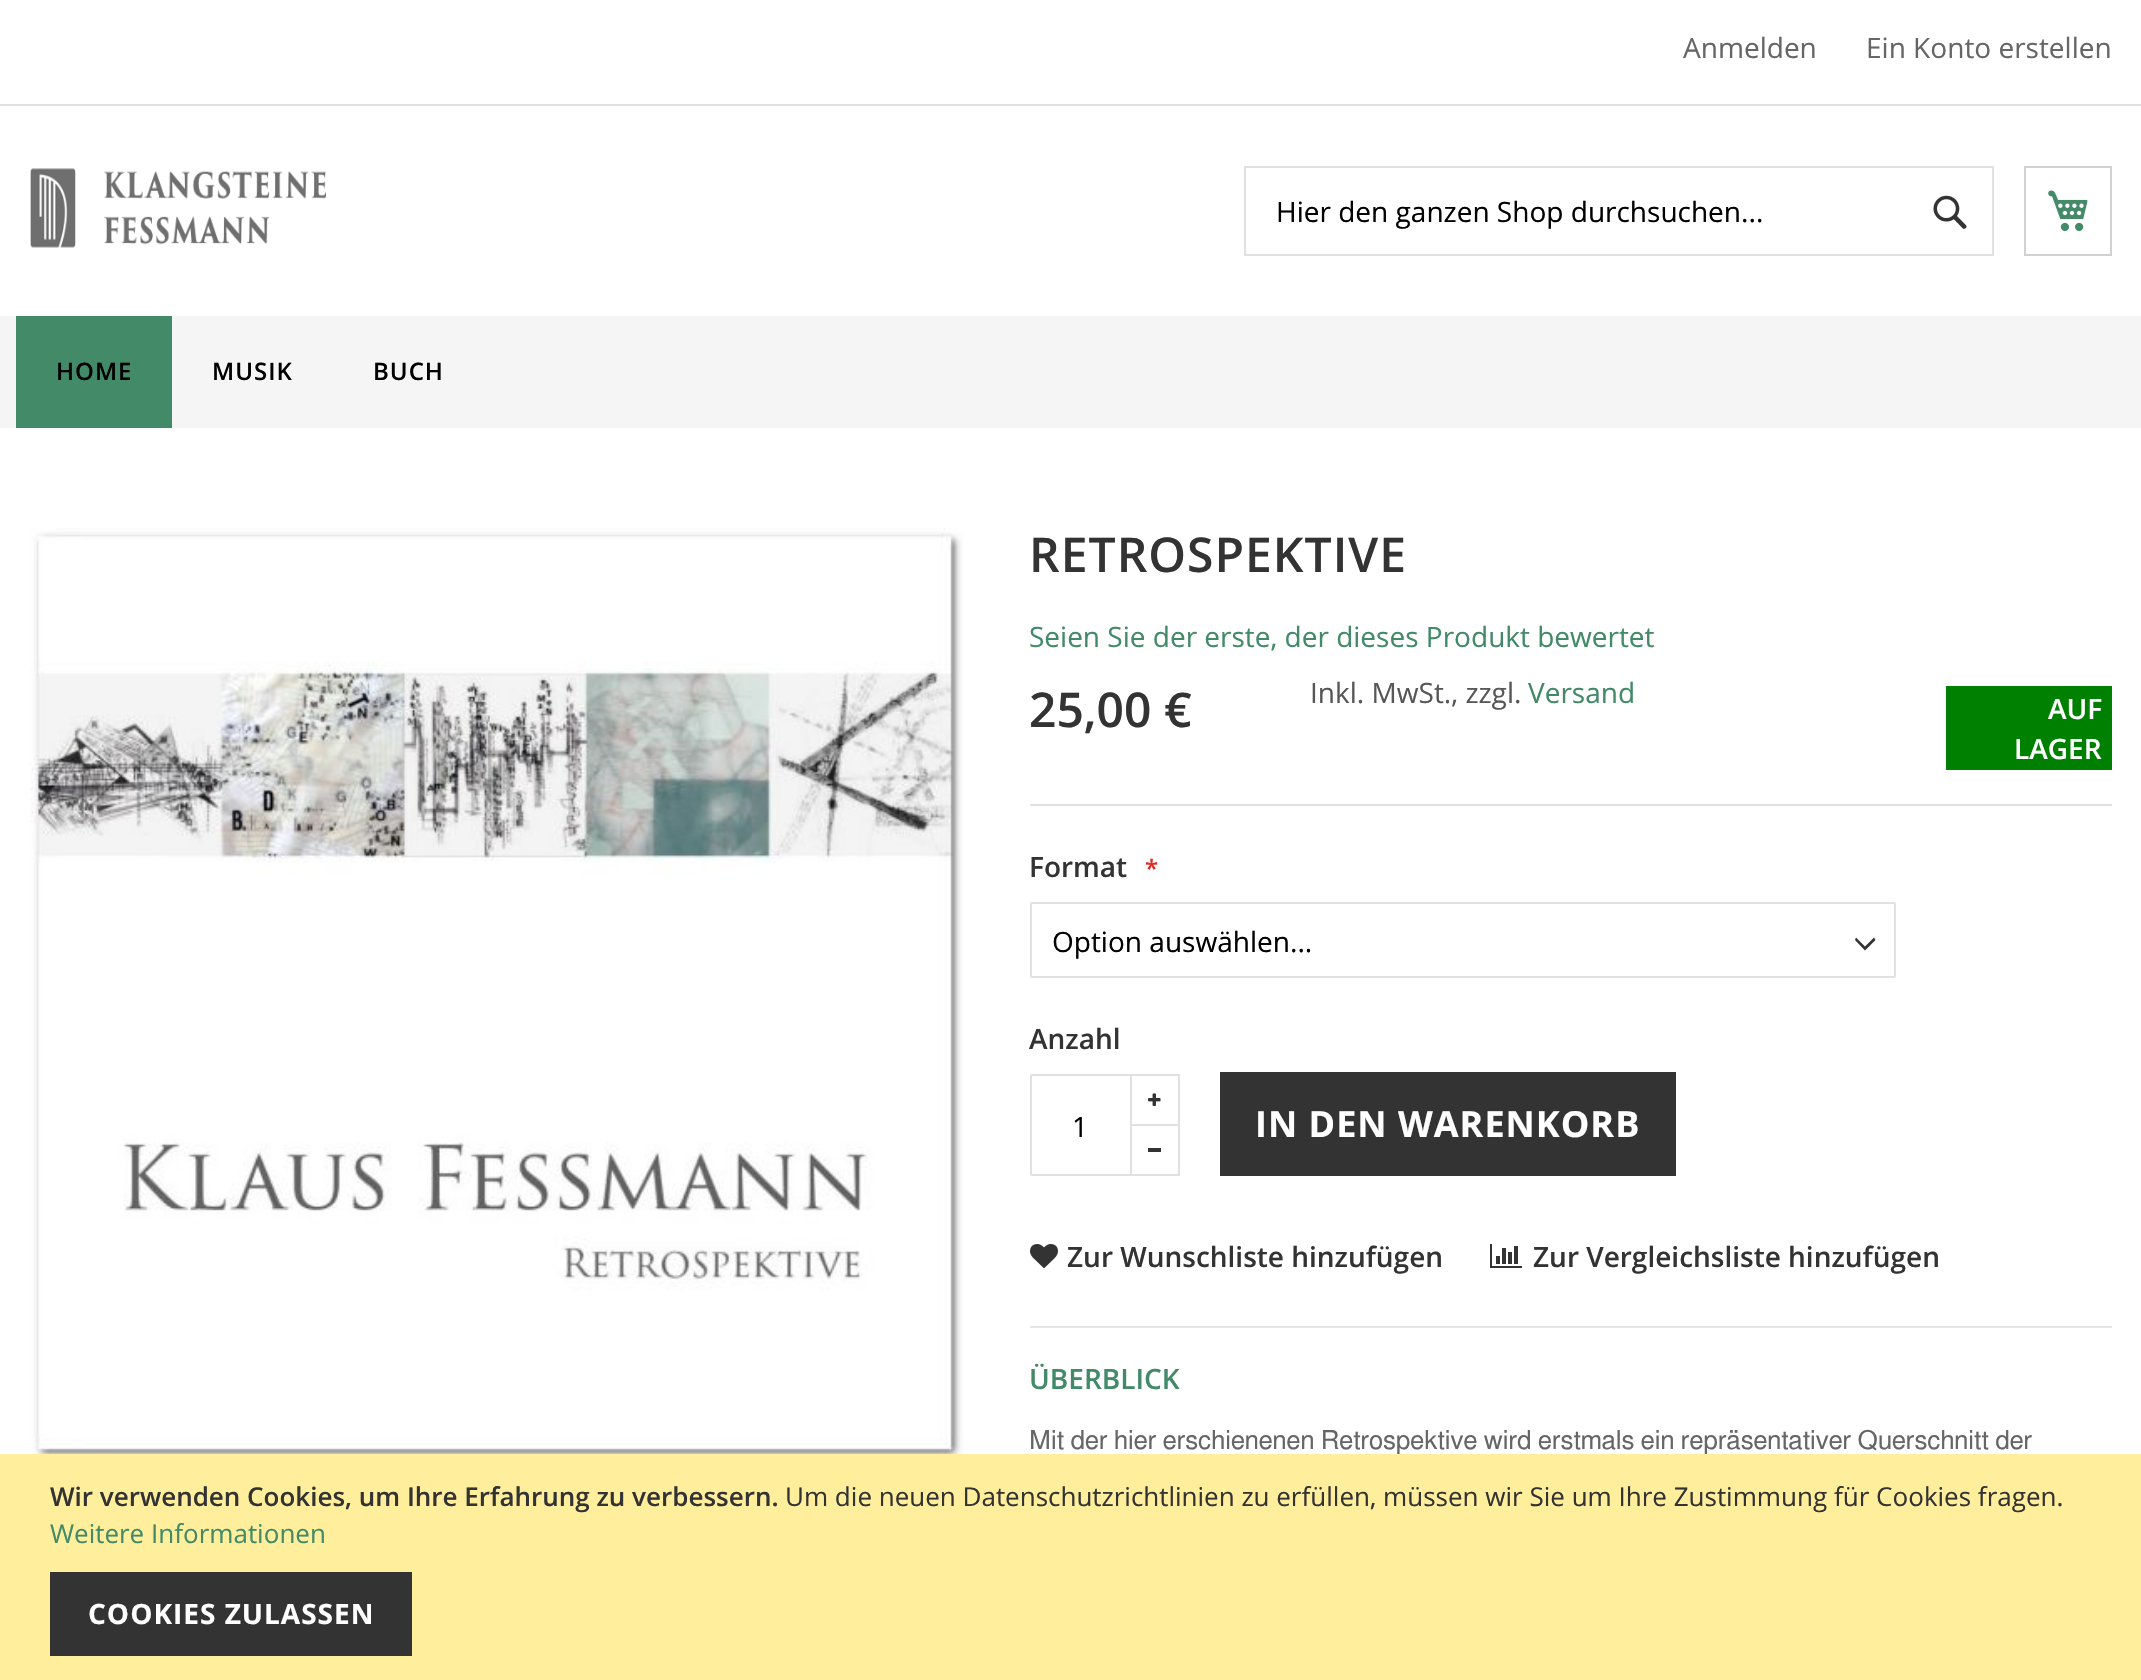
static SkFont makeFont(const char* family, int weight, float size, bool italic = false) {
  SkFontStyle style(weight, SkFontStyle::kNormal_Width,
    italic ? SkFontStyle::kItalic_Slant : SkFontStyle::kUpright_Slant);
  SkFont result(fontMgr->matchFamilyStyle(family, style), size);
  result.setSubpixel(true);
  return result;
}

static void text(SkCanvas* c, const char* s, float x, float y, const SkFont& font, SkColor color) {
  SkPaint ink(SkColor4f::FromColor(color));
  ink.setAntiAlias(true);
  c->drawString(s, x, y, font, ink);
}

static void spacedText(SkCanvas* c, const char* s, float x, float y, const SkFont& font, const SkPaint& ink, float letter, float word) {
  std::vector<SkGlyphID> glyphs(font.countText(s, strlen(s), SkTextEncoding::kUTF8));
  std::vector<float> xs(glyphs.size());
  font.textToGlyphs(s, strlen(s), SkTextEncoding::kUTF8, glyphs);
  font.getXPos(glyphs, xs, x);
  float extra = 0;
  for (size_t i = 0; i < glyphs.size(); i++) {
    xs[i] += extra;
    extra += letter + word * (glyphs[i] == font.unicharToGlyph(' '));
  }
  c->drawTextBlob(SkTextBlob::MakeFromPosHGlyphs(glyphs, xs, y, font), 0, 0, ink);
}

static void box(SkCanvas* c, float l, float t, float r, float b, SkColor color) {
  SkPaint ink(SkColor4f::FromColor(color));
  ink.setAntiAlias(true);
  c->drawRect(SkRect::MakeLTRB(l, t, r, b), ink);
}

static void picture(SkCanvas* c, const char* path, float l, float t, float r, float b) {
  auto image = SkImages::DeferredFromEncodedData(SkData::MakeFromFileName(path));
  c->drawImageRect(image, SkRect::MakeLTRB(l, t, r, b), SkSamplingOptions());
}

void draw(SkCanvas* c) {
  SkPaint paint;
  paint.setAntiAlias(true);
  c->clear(0xffffffff);
  box(c, 0, 104, 2141, 106, 0xffe1e1e1);
  SkFont face1 = makeFont("Open Sans", 400, 28);
  text(c, "Anmelden", 1683, 58, face1, 0xff666666);
  text(c, "Ein Konto erstellen", 1866, 58, face1, 0xff666666);
  picture(c, "img_01.png", 30, 168, 326, 248);
  paint.setStyle(SkPaint::kStroke_Style);
  paint.setStrokeWidth(2);
  paint.setColor(0xffe1e1e1);
  c->drawRect(SkRect::MakeLTRB(1245, 167, 1993, 255), paint);
  text(c, "Hier den ganzen Shop durchsuchen...", 1276, 222, face1, 0xff000000);
  picture(c, "img_02.png", 1933, 195, 1967, 229);
  paint.setColor(0xffd1d1d1);
  c->drawRect(SkRect::MakeLTRB(2025, 167, 2111, 255), paint);
  picture(c, "img_03.png", 2048, 190, 2088, 231);
  box(c, 0, 316, 2141, 428, 0xfff5f5f5);
  box(c, 16, 316, 172, 428, 0xff428a68);
  SkFont face2 = makeFont("Open Sans", 600, 24);
  paint.setStyle(SkPaint::kFill_Style);
  paint.setColor(0xff000000);
  spacedText(c, "HOME", 56, 380, face2, paint, 1, 0);
  spacedText(c, "MUSIK", 212, 380, face2, paint, 1, 0);
  spacedText(c, "BUCH", 373, 380, face2, paint, 1, 0);
  picture(c, "img_04.png", 30, 528, 964, 1454);
  SkFont face3 = makeFont("Open Sans", 600, 48);
  paint.setColor(0xff333333);
  spacedText(c, "RETROSPEKTIVE", 1029, 572, face3, paint, 1, 0);
  text(c, "Seien Sie der erste, der dieses Produkt bewertet", 1029, 647, face1, 0xff428a68);
  box(c, 1030, 804, 2112, 806, 0xffe1e1e1);
  text(c, "25,00 €", 1029, 727, face3, 0xff333333);
  text(c, "Inkl. MwSt., zzgl.", 1310, 703, face1, 0xff575757);
  text(c, "Versand", 1528, 703, face1, 0xff428a68);
  box(c, 1946, 686, 2112, 770, 0xff008000);
  SkFont face4 = makeFont("Open Sans", 600, 28);
  text(c, "AUF", 2048, 719, face4, 0xffffffff);
  text(c, "LAGER", 2014, 759, face4, 0xffffffff);
  text(c, "Format", 1029, 877, face4, 0xff333333);
  text(c, "*", 1145, 877, face2, 0xffe02b27);
  c->drawPath(SkPathBuilder(SkPathFillType::kEvenOdd).moveTo(1865.5f, 950).lineTo(1875.5f, 940).lineTo(1874, 937.5f).lineTo(1865, 946.5f).lineTo(1856, 937.5f).lineTo(1855, 940).lineTo(1865, 950.5f).close().detach(), paint);
  paint.setStyle(SkPaint::kStroke_Style);
  paint.setColor(0xffe1e1e1);
  c->drawRoundRect(SkRect::MakeLTRB(1031, 903, 1895, 977), 1, 1, paint);
  text(c, "Option auswählen...", 1052, 952, face1, 0xff000000);
  text(c, "Anzahl", 1029, 1049, face4, 0xff333333);
  c->drawRoundRect(SkRect::MakeLTRB(1031, 1075, 1131, 1175), 1, 1, paint);
  text(c, "1", 1072, 1137, face1, 0xff000000);
  c->drawRect(SkRect::MakeLTRB(1131, 1075, 1179, 1175), paint);
  box(c, 1132, 1124, 1178, 1126, 0xffe1e1e1);
  picture(c, "img_05.png", 1148, 1093, 1161, 1106);
  box(c, 1148, 1148, 1161, 1152, 0xff333333);
  box(c, 1220, 1072, 1676, 1176, 0xff333333);
  SkFont face5 = makeFont("Open Sans", 700, 36);
  paint.setStyle(SkPaint::kFill_Style);
  paint.setColor(0xffffffff);
  spacedText(c, "IN DEN WARENKORB", 1255, 1137, face5, paint, 1, 0);
  picture(c, "img_06.png", 1030, 1244, 1058, 1268);
  text(c, "Zur Wunschliste hinzufügen", 1067, 1267, face4, 0xff333333);
  picture(c, "img_07.png", 1490, 1244, 1522, 1268);
  text(c, "Zur Vergleichsliste hinzufügen", 1533, 1267, face4, 0xff333333);
  box(c, 1030, 1326, 2112, 1328, 0xffe5e5e5);
  text(c, "ÜBERBLICK", 1029, 1389, face4, 0xff428a68);
  SkFont face6 = makeFont("FreeSans", 400, 26);
  text(c, "Mit der hier erschienenen Retrospektive wird erstmals ein repräsentativer Querschnitt der", 1029, 1449, face6, 0xff666666);
  box(c, 0, 1454, 2141, 1680, 0xffffee9c);
  SkFont face7 = makeFont("Open Sans", 600, 26);
  text(c, "Wir verwenden Cookies, um Ihre Erfahrung zu verbessern.", 50, 1506, face7, 0xff333333);
  SkFont face8 = makeFont("Open Sans", 400, 26);
  text(c, "Um die neuen Datenschutzrichtlinien zu erfüllen, müssen wir Sie um Ihre Zustimmung für Cookies fragen.", 785, 1506, face8, 0xff333333);
  text(c, "Weitere Informationen", 50, 1543, face8, 0xff428a68);
  box(c, 50, 1572, 412, 1656, 0xff333333);
  SkFont face9 = makeFont("Open Sans", 700, 28);
  spacedText(c, "COOKIES ZULASSEN", 88, 1624, face9, paint, 1, 0);
}
